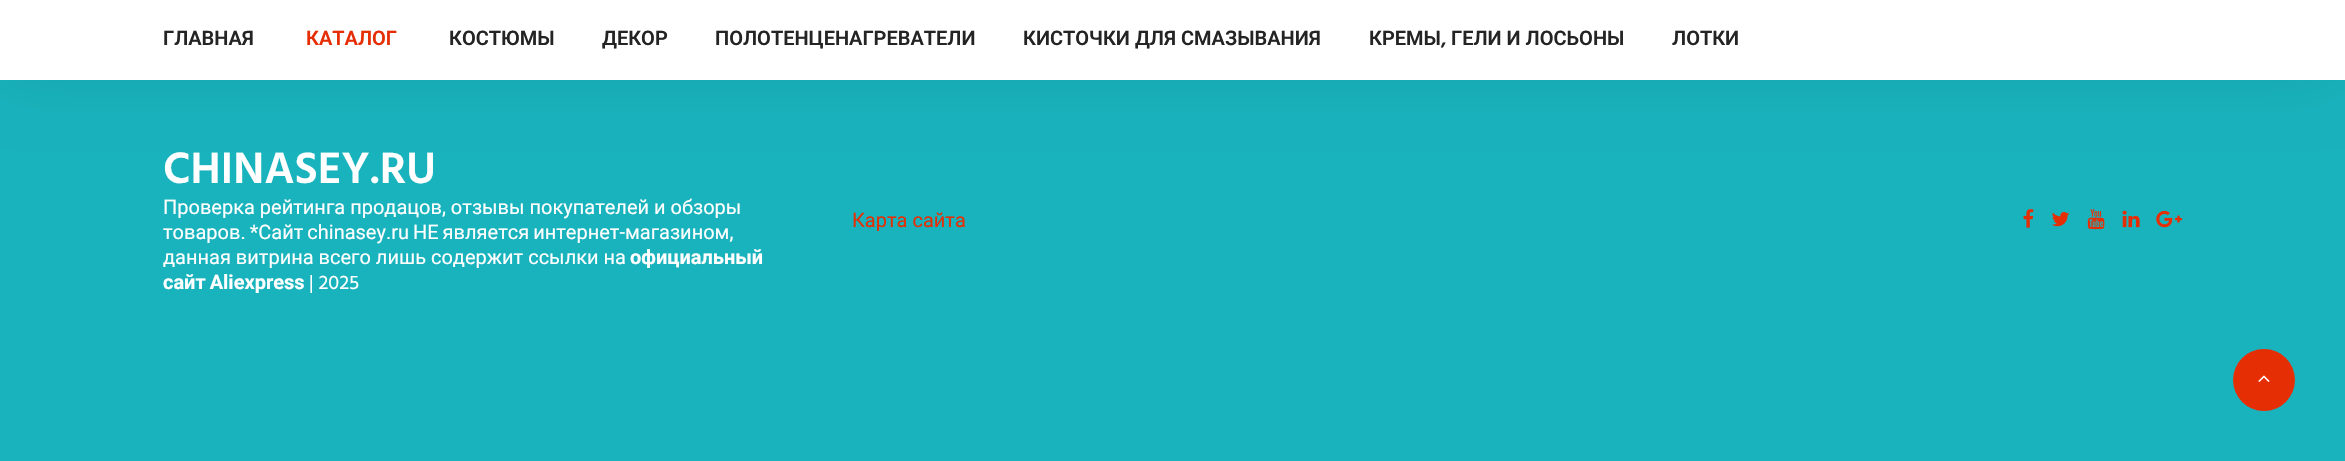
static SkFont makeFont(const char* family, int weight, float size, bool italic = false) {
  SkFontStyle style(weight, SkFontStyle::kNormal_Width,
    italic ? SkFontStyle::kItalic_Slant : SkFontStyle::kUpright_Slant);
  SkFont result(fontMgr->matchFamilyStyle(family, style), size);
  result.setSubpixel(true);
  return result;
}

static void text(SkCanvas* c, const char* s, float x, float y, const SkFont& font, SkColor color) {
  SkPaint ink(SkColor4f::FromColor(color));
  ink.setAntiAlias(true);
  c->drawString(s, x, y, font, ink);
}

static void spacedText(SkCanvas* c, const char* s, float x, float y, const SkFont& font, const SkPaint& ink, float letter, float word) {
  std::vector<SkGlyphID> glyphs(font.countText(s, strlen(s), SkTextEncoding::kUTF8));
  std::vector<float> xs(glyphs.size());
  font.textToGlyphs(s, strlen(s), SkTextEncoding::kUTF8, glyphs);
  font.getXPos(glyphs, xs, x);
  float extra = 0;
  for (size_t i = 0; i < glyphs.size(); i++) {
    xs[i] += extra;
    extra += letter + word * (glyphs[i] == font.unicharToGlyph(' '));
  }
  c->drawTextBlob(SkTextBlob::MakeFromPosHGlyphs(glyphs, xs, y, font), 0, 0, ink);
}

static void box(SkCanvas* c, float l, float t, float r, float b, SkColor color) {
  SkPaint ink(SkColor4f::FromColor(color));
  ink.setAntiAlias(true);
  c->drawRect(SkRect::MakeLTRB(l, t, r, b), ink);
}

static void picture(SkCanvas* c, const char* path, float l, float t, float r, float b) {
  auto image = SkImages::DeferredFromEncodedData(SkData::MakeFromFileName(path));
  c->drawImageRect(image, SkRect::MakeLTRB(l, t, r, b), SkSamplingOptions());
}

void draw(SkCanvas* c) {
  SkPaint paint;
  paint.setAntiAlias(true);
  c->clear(0xff19b3bd);
  paint.setColor(0x17000000);
  paint.setMaskFilter(SkMaskFilter::MakeBlur(kNormal_SkBlurStyle, 31));
  c->drawRect(SkRect::MakeLTRB(-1, 3, 2339, 78), paint);
  paint.setMaskFilter(nullptr);
  box(c, 0, 0, 2345, 80, 0xffffffff);
  SkFont face1 = makeFont("Roboto", 600, 20);
  text(c, "ГЛАВНАЯ", 163, 45, face1, 0xff242424);
  text(c, "КАТАЛОГ", 306, 45, face1, 0xffe62e04);
  text(c, "КОСТЮМЫ", 449, 45, face1, 0xff242424);
  text(c, "ДЕКОР", 602, 45, face1, 0xff242424);
  text(c, "ПОЛОТЕНЦЕНАГРЕВАТЕЛИ", 715, 45, face1, 0xff242424);
  text(c, "КИСТОЧКИ ДЛЯ СМАЗЫВАНИЯ", 1023, 45, face1, 0xff242424);
  text(c, "КРЕМЫ", 1369, 45, face1, 0xff242424);
  SkFont face2 = makeFont("Hind", 600, 20);
  text(c, ",", 1441, 45, face2, 0xff242424);
  text(c, "ГЕЛИ И ЛОСЬОНЫ", 1451, 45, face1, 0xff242424);
  text(c, "ЛОТКИ", 1672, 45, face1, 0xff242424);
  SkFont face3 = makeFont("Hind", 600, 45);
  text(c, "CHINASEY.RU", 163, 183, face3, 0xffffffff);
  SkFont face4 = makeFont("Roboto", 400, 20);
  text(c, "Проверка рейтинга продацов, отзывы покупателей и обзоры", 163, 214, face4, 0xffffffff);
  paint.setColor(0xffffffff);
  spacedText(c, "товаров. *Сайт chinasey.ru НЕ является интернет-магазином,", 163, 239, face4, paint, 0, -1);
  text(c, "данная витрина всего лишь содержит ссылки на", 163, 264, face4, 0xffffffff);
  SkFont face5 = makeFont("Roboto", 700, 20);
  text(c, "официальный", 630, 264, face5, 0xffffffff);
  spacedText(c, "сайт Aliexpress", 163, 289, face5, paint, 0, -1);
  SkFont face6 = makeFont("Hind", 400, 20);
  text(c, "| 2025", 309, 289, face6, 0xffffffff);
  text(c, "Карта сайта", 852, 227, face4, 0xffe62e04);
  picture(c, "img_01.png", 2023, 209, 2034, 228);
  picture(c, "img_02.png", 2052, 212, 2070, 227);
  picture(c, "img_03.png", 2087, 209, 2105, 230);
  picture(c, "img_04.png", 2122, 210, 2140, 228);
  picture(c, "img_05.png", 2156, 210, 2182, 228);
  paint.setColor(0xffe62e04);
  c->drawCircle(2264, 380, 31, paint);
  picture(c, "img_06.png", 2258, 375, 2270, 382);
}
